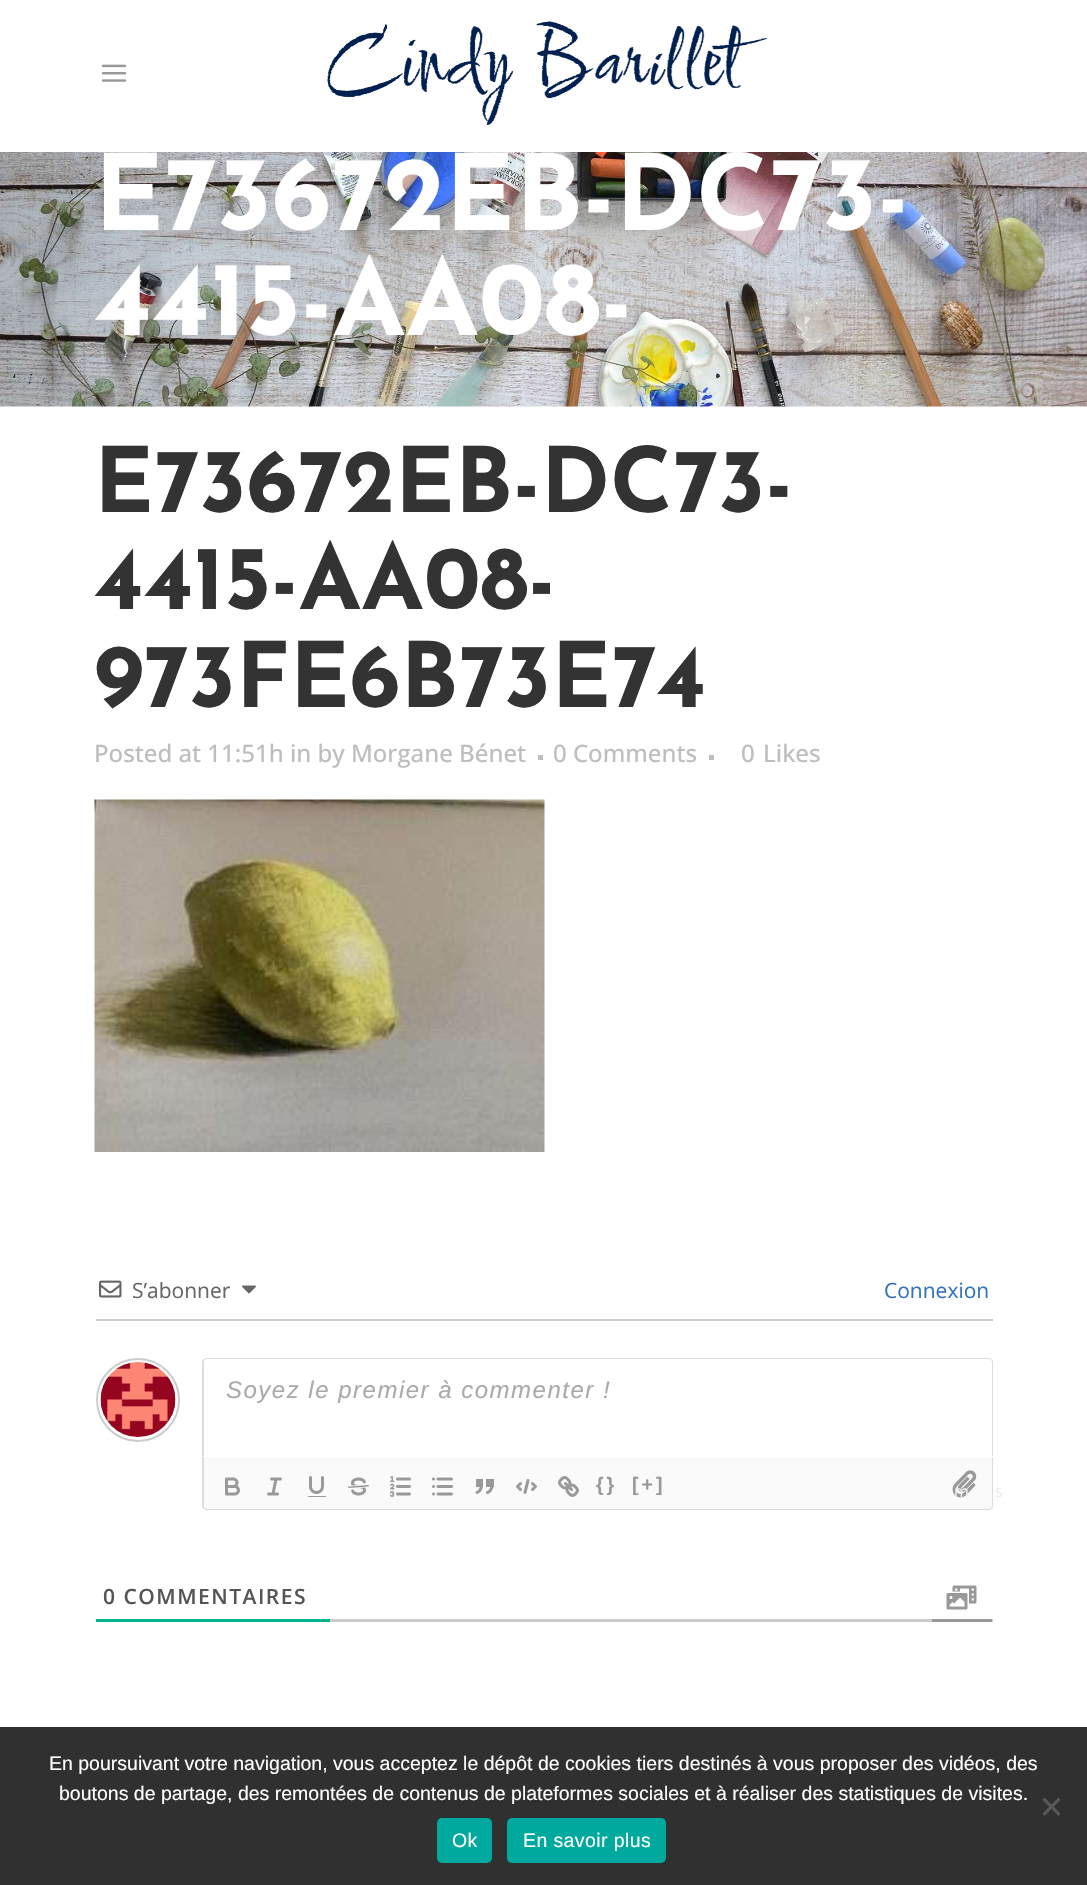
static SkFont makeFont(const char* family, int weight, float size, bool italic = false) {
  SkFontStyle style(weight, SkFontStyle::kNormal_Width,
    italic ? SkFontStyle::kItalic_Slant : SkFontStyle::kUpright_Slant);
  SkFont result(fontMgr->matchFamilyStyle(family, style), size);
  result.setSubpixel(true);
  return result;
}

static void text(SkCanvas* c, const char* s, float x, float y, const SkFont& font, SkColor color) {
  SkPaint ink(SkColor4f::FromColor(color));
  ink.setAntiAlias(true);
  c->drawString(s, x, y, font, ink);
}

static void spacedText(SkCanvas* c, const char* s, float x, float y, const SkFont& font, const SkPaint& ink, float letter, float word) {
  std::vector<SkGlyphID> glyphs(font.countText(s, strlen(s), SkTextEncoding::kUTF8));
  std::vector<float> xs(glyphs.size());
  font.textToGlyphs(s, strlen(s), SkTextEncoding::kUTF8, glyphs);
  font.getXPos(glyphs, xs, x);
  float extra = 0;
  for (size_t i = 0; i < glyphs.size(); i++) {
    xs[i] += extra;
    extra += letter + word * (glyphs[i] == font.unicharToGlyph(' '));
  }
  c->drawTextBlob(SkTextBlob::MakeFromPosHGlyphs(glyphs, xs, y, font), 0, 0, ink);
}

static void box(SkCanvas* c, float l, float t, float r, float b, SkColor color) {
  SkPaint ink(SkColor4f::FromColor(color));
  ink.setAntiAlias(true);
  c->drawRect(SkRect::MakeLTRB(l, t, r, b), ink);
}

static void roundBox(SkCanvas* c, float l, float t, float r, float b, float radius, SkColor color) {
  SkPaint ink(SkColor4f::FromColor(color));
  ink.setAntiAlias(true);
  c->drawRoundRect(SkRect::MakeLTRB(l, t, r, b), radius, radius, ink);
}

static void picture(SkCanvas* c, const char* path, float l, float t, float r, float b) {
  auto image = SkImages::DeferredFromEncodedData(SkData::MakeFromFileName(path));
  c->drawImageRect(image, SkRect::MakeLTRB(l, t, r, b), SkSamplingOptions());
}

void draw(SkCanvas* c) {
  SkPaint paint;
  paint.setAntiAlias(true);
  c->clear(0xffffffff);
  picture(c, "img_01.png", 101, 64, 127, 82);
  picture(c, "img_02.png", 327, 21, 768, 125);
  picture(c, "img_03.png", 0, 152, 1087, 407);
  SkFont face1 = makeFont("Josefin Sans", 700, 105);
  text(c, "E73672EB-DC73-", 94, 230, face1, 0xffffffff);
  text(c, "4415-AA08-", 94, 335, face1, 0xffffffff);
  SkFont face2 = makeFont("Josefin Sans", 700, 90);
  text(c, "E73672EB-DC73-", 94, 512, face2, 0xff333333);
  text(c, "4415-AA08-", 94, 609, face2, 0xff333333);
  text(c, "973FE6B73E74", 94, 707, face2, 0xff333333);
  SkFont face3 = makeFont("Open Sans", 500, 24);
  text(c, "Posted at 11:51h in by Morgane Bénet", 94, 762, face3, 0xffbebebe);
  box(c, 538, 755, 543, 760, 0xffbebebe);
  text(c, "0 Comments", 553, 762, face3, 0xffbebebe);
  box(c, 709, 755, 714, 760, 0xffbebebe);
  text(c, "0", 741, 762, face3, 0xffbebebe);
  text(c, "Likes", 763, 762, face3, 0xffbebebe);
  picture(c, "img_04.png", 94, 799, 545, 1152);
  box(c, 96, 1319, 993, 1321, 0xffcccccc);
  picture(c, "img_05.png", 99, 1280, 122, 1298);
  SkFont face4 = makeFont("Open Sans", 400, 21);
  text(c, "S’abonner", 132, 1298, face4, 0xff666666);
  picture(c, "img_06.png", 242, 1285, 256, 1294);
  text(c, "Connexion", 884, 1298, face4, 0xff3272bf);
  paint.setStyle(SkPaint::kStroke_Style);
  paint.setStrokeWidth(2);
  paint.setColor(0xffcccccc);
  c->drawCircle(138, 1400, 41, paint);
  picture(c, "img_07.png", 100, 1362, 176, 1437);
  paint.setStyle(SkPaint::kFill_Style);
  paint.setColor(0xfffafafa);
  c->drawPath(SkPathBuilder().moveTo(203, 1457).lineTo(993, 1457).lineTo(993, 1506).cubicTo(993, 1509, 991, 1511, 988, 1511).lineTo(208, 1511).cubicTo(205, 1511, 203, 1509, 203, 1506).close().detach(), paint);
  paint.setColor(0xffdddddd);
  c->drawPath(SkPathBuilder(SkPathFillType::kEvenOdd).moveTo(202, 1456).lineTo(993, 1456).lineTo(993, 1506).cubicTo(993, 1508, 991, 1510, 988, 1510).lineTo(207, 1510).cubicTo(205, 1510, 202, 1508, 202, 1506).close().moveTo(204, 1456).lineTo(992, 1456).lineTo(992, 1506).cubicTo(992, 1508, 990, 1509, 988, 1509).lineTo(207, 1509).cubicTo(205, 1509, 204, 1508, 204, 1506).close().detach(), paint);
  paint.setColor(0xffffffff);
  c->drawPath(SkPathBuilder().moveTo(208, 1358).lineTo(988, 1358).cubicTo(991, 1358, 993, 1360, 993, 1363).lineTo(993, 1457).lineTo(203, 1457).lineTo(203, 1363).cubicTo(203, 1360, 205, 1358, 208, 1358).close().detach(), paint);
  paint.setColor(0xffdddddd);
  c->drawPath(SkPathBuilder(SkPathFillType::kEvenOdd).moveTo(207, 1358).lineTo(988, 1358).cubicTo(991, 1358, 993, 1360, 993, 1362).lineTo(993, 1456).lineTo(202, 1456).lineTo(202, 1362).cubicTo(202, 1360, 205, 1358, 207, 1358).close().moveTo(207, 1359).lineTo(988, 1359).cubicTo(990, 1359, 992, 1360, 992, 1362).lineTo(992, 1456).lineTo(204, 1456).lineTo(204, 1362).cubicTo(204, 1360, 205, 1359, 207, 1359).close().detach(), paint);
  SkFont face5 = makeFont("Liberation Sans", 400, 24, true);
  paint.setColor(0xffaaaaaa);
  spacedText(c, "Soyez le premier à commenter !", 226, 1398, face5, paint, 1.5f, 0);
  picture(c, "img_08.png", 225, 1477, 240, 1496);
  paint.setStyle(SkPaint::kStroke_Style);
  paint.setStrokeWidth(3);
  paint.setStrokeCap(SkPaint::kRound_Cap);
  paint.setStrokeJoin(SkPaint::kRound_Join);
  paint.setColor(0xff999999);
  c->drawPath(SkPathBuilder().moveTo(271.5f, 1479).lineTo(280.5f, 1479).moveTo(268.5f, 1494).lineTo(277.5f, 1494).moveTo(273, 1494).lineTo(276, 1479).detach(), paint);
  picture(c, "img_09.png", 308, 1476, 326, 1497);
  picture(c, "img_10.png", 348, 1477, 369, 1496);
  picture(c, "img_11.png", 390, 1476, 411, 1497);
  picture(c, "img_12.png", 432, 1477, 453, 1496);
  picture(c, "img_13.png", 475, 1479, 494, 1494);
  c->drawPath(SkPathBuilder().moveTo(520.5f, 1483.5f).lineTo(517.5f, 1486.5f).lineTo(520.5f, 1489.5f).moveTo(532.5f, 1483.5f).lineTo(535.5f, 1486.5f).lineTo(532.5f, 1489.5f).moveTo(528, 1480.5f).lineTo(525, 1492.5f).detach(), paint);
  picture(c, "img_14.png", 558, 1476, 579, 1497);
  SkFont face6 = makeFont("Liberation Sans", 700, 19.5f);
  paint.setStyle(SkPaint::kFill_Style);
  spacedText(c, "{}", 596, 1491, face6, paint, 3, 0);
  spacedText(c, "[+]", 632, 1491, face6, paint, 3, 0);
  picture(c, "img_15.png", 952, 1470, 977, 1498);
  box(c, 330, 1619, 993, 1622, 0xffcccccc);
  box(c, 932, 1619, 992, 1622, 0xff999999);
  SkFont face7 = makeFont("Open Sans", 400, 16);
  text(c, "m", 954, 1497, face7, 0xffeeeeee);
  text(c, "s", 995, 1497, face7, 0xffeeeeee);
  picture(c, "img_16.png", 946, 1585, 977, 1610);
  box(c, 96, 1619, 330, 1622, 0xff00b38f);
  SkFont face8 = makeFont("Open Sans", 600, 21);
  paint.setColor(0xff555555);
  spacedText(c, "0 COMMENTAIRES", 103, 1604, face8, paint, 1.5f, 0);
  box(c, 0, 1727, 1087, 1885, 0xff303030);
  SkFont face9 = makeFont("Liberation Sans", 400, 19.5f);
  text(c, "En poursuivant votre navigation, vous acceptez le dépôt de cookies tiers destinés à vous proposer des vidéos, des", 49, 1770, face9, 0xffffffff);
  text(c, "boutons de partage, des remontées de contenus de plateformes sociales et à réaliser des statistiques de visites.", 59, 1800, face9, 0xffffffff);
  paint.setColor(0xff585858);
  c->drawPath(SkPathBuilder().moveTo(1058.5f, 1797.5f).lineTo(1060.5f, 1800).lineTo(1044.5f, 1816).lineTo(1042.5f, 1813.5f).close().detach(), paint);
  c->drawPath(SkPathBuilder().moveTo(1042.5f, 1800).lineTo(1044.5f, 1797.5f).lineTo(1060.5f, 1813.5f).lineTo(1058.5f, 1816).close().detach(), paint);
  roundBox(c, 437, 1818, 492, 1863, 5, 0xff00a99d);
  paint.setColor(0xffffffff);
  spacedText(c, "Ok", 452, 1847, face9, paint, 0.4f, 0);
  roundBox(c, 507, 1818, 666, 1863, 5, 0xff00a99d);
  spacedText(c, "En savoir plus", 523, 1847, face9, paint, 0.4f, 0);
}
